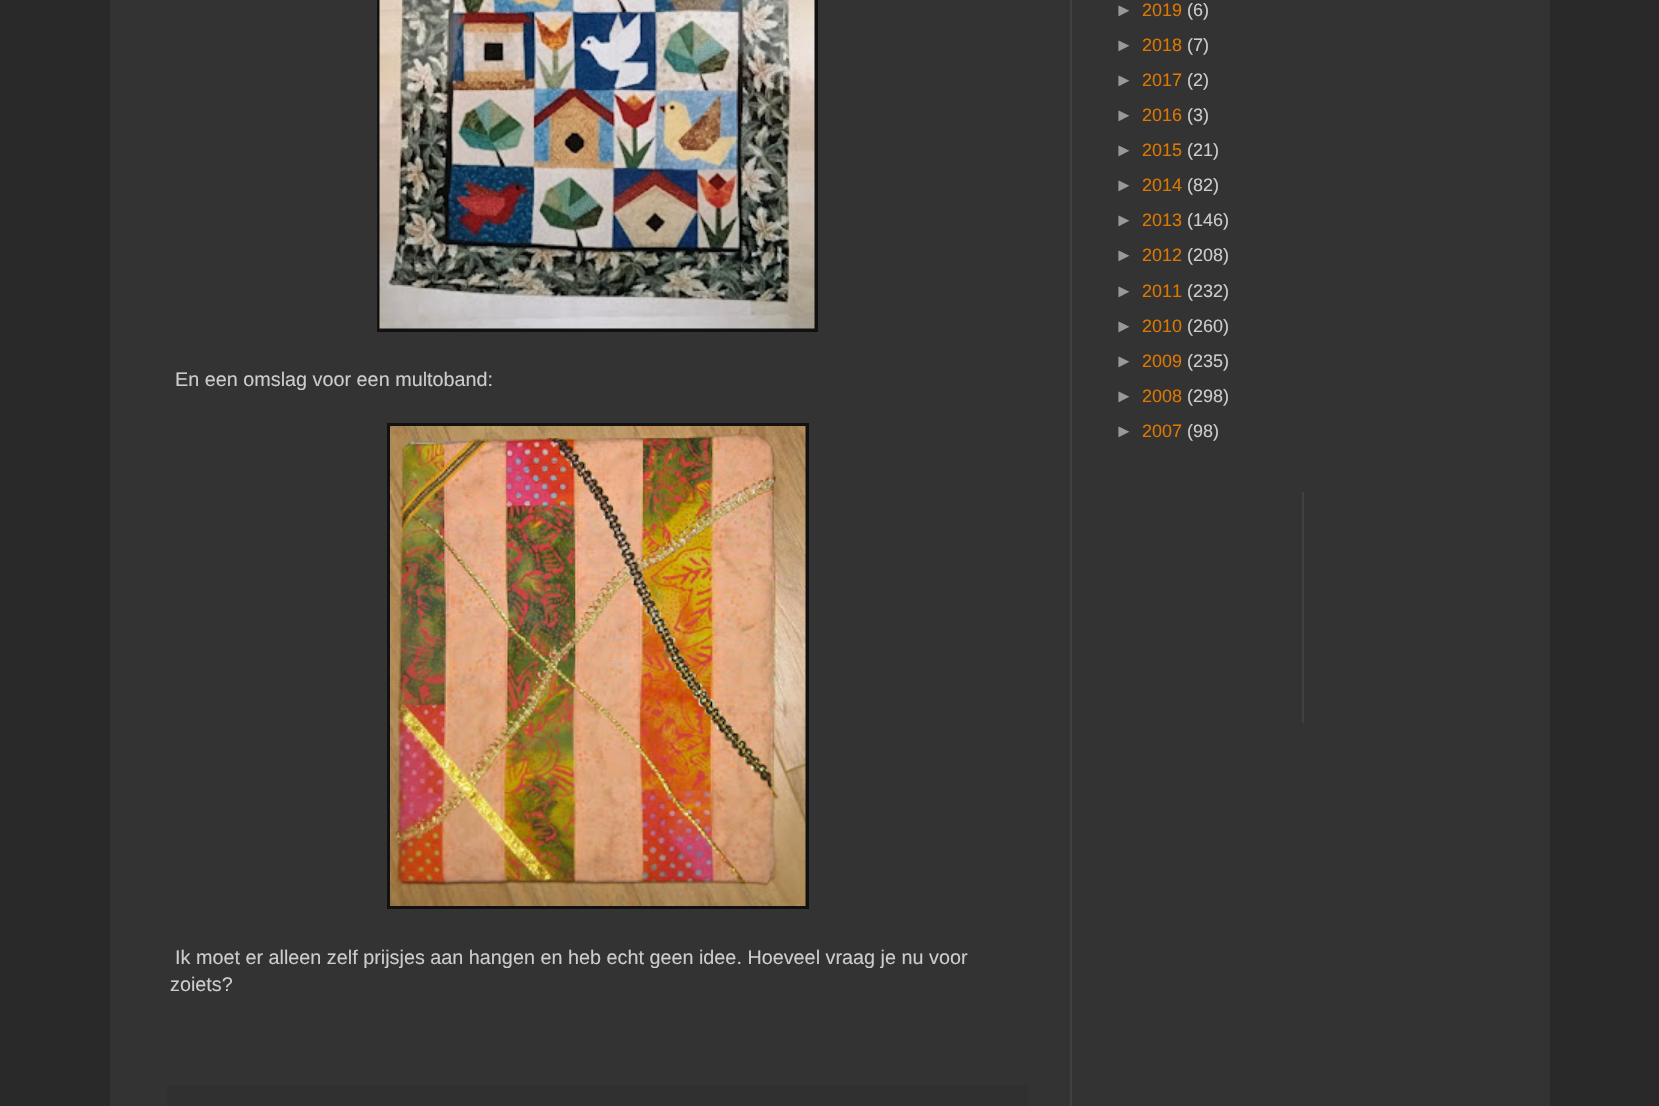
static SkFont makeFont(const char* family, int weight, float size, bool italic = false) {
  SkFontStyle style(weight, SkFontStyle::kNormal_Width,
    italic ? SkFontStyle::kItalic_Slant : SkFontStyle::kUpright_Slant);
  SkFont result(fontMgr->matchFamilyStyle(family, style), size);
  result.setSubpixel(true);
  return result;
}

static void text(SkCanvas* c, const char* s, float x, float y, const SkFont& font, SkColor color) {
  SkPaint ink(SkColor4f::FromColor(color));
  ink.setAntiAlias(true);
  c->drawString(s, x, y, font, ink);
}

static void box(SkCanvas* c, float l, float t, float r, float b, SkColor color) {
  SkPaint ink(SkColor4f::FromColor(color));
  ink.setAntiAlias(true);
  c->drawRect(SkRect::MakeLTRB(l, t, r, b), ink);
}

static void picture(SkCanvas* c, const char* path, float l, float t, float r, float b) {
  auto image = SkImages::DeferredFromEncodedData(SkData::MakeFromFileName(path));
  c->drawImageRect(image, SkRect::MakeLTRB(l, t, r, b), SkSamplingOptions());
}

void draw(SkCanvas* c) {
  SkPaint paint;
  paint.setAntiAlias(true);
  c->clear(0xff292929);
  box(c, 110, 0, 1550, 1106, 0xff333333);
  box(c, 1070, 0, 1072, 1106, 0xff404040);
  SkFont face1 = makeFont("Liberation Sans", 400, 18);
  text(c, "►", 1115, 16, face1, 0xff999999);
  text(c, "2019", 1142, 16, face1, 0xffdd7700);
  text(c, "(6)", 1187, 16, face1, 0xffcccccc);
  text(c, "►", 1115, 51, face1, 0xff999999);
  text(c, "2018", 1142, 51, face1, 0xffdd7700);
  text(c, "(7)", 1187, 51, face1, 0xffcccccc);
  text(c, "►", 1115, 86, face1, 0xff999999);
  text(c, "2017", 1142, 86, face1, 0xffdd7700);
  text(c, "(2)", 1187, 86, face1, 0xffcccccc);
  text(c, "►", 1115, 121, face1, 0xff999999);
  text(c, "2016", 1142, 121, face1, 0xffdd7700);
  text(c, "(3)", 1187, 121, face1, 0xffcccccc);
  text(c, "►", 1115, 156, face1, 0xff999999);
  text(c, "2015", 1142, 156, face1, 0xffdd7700);
  text(c, "(21)", 1187, 156, face1, 0xffcccccc);
  text(c, "►", 1115, 191, face1, 0xff999999);
  text(c, "2014", 1142, 191, face1, 0xffdd7700);
  text(c, "(82)", 1187, 191, face1, 0xffcccccc);
  text(c, "►", 1115, 226, face1, 0xff999999);
  text(c, "2013", 1142, 226, face1, 0xffdd7700);
  text(c, "(146)", 1187, 226, face1, 0xffcccccc);
  text(c, "►", 1115, 261, face1, 0xff999999);
  text(c, "2012", 1142, 261, face1, 0xffdd7700);
  text(c, "(208)", 1187, 261, face1, 0xffcccccc);
  text(c, "►", 1115, 297, face1, 0xff999999);
  text(c, "2011", 1142, 297, face1, 0xffdd7700);
  text(c, "(232)", 1187, 297, face1, 0xffcccccc);
  text(c, "►", 1115, 332, face1, 0xff999999);
  text(c, "2010", 1142, 332, face1, 0xffdd7700);
  text(c, "(260)", 1187, 332, face1, 0xffcccccc);
  text(c, "►", 1115, 367, face1, 0xff999999);
  text(c, "2009", 1142, 367, face1, 0xffdd7700);
  text(c, "(235)", 1187, 367, face1, 0xffcccccc);
  text(c, "►", 1115, 402, face1, 0xff999999);
  text(c, "2008", 1142, 402, face1, 0xffdd7700);
  text(c, "(298)", 1187, 402, face1, 0xffcccccc);
  text(c, "►", 1115, 437, face1, 0xff999999);
  text(c, "2007", 1142, 437, face1, 0xffdd7700);
  text(c, "(98)", 1187, 437, face1, 0xffcccccc);
  box(c, 1302, 492, 1304, 723, 0xff404040);
  box(c, 377, 0, 818, 332, 0xff111111);
  picture(c, "img_01.png", 379, 0, 815, 329);
  SkFont face2 = makeFont("Liberation Sans", 400, 19.8f);
  text(c, "En een omslag voor een multoband:", 175, 386, face2, 0xffcccccc);
  box(c, 387, 423, 809, 909, 0xff111111);
  picture(c, "img_02.png", 390, 426, 806, 906);
  text(c, "Ik moet er alleen zelf prijsjes aan hangen en heb echt geen idee. Hoeveel vraag je nu voor", 175, 964, face2, 0xffcccccc);
  text(c, "zoiets?", 170, 991, face2, 0xffcccccc);
  box(c, 167, 1085, 1028, 1106, 0xff303030);
}
